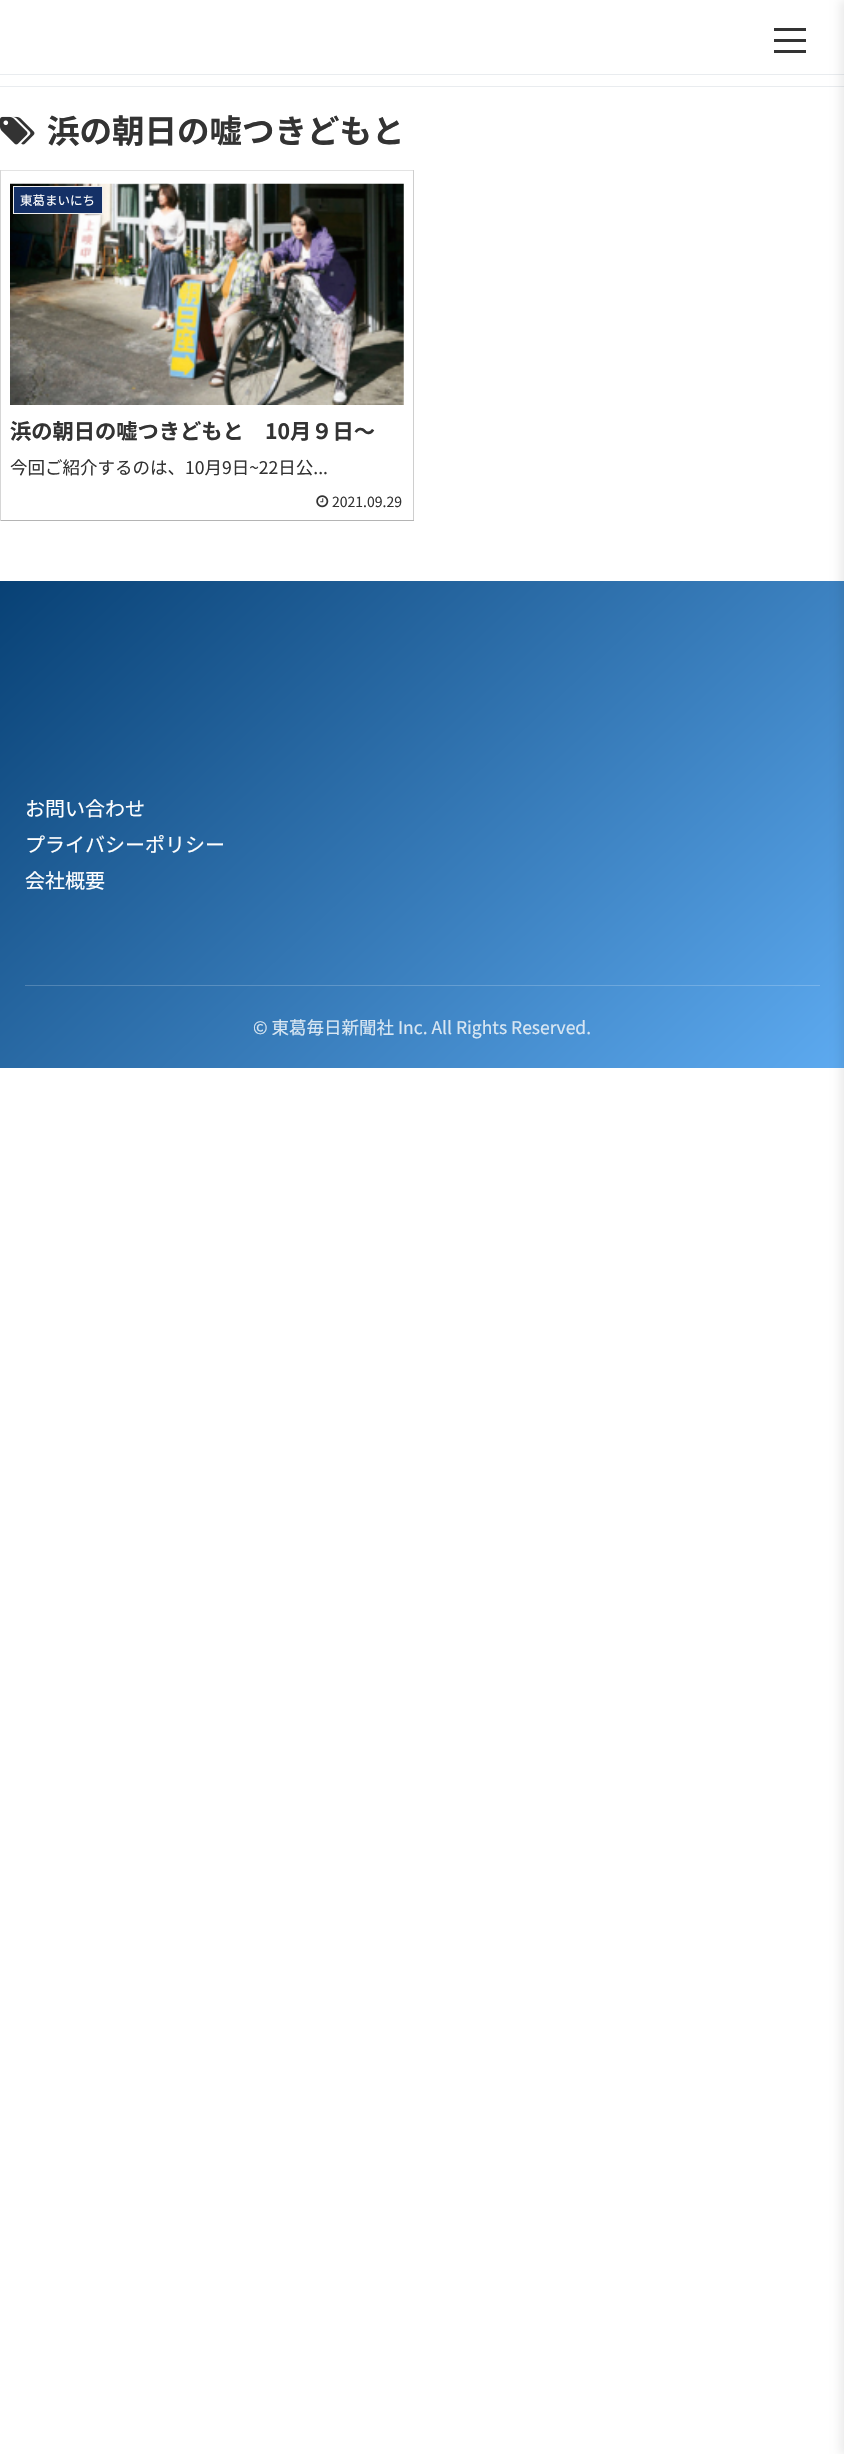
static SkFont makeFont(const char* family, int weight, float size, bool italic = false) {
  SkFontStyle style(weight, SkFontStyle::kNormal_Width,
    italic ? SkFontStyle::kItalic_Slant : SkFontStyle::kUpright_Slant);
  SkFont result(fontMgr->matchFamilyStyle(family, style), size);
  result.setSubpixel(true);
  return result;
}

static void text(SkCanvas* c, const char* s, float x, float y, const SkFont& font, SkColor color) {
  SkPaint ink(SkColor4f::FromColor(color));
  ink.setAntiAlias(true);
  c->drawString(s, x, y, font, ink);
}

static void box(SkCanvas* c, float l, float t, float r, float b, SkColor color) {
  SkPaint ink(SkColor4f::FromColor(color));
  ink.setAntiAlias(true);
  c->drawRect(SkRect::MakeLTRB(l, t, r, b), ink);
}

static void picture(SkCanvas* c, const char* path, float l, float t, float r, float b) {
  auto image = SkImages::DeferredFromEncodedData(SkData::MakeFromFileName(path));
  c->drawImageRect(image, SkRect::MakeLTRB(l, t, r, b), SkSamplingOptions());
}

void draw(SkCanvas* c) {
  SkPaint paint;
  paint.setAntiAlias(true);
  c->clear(0xffffffff);
  box(c, 0, 86, 844, 87, 0xffe9ecef);
  box(c, 0, 74, 844, 75, 0xffe9ecef);
  {
    const SkColor colors[] = {0xff084175, 0xff5daaf0};
    const float stops[] = {0, 1};
    const SkPoint ends[] = {{105, 484}, {740, 1165}};
    paint.setShader(SkGradientShader::MakeLinear(ends, colors, stops, 2, SkTileMode::kClamp));
    paint.setAlpha(255);
  }
  c->drawRect(SkRect::MakeLTRB(0, 581, 844, 1068), paint);
  paint.setShader(nullptr);
  paint.setColor(0x14000000);
  paint.setMaskFilter(SkMaskFilter::MakeBlur(kNormal_SkBlurStyle, 5));
  c->drawRect(SkRect::MakeLTRB(840, 0, 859, 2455), paint);
  paint.setMaskFilter(nullptr);
  box(c, 774, 28, 806, 31, 0xff333333);
  box(c, 774, 39, 806, 42, 0xff333333);
  box(c, 774, 50, 806, 53, 0xff333333);
  picture(c, "img_01.png", 0, 116, 35, 145);
  SkFont face1 = makeFont("Noto Sans JP", 700, 32.5f);
  text(c, "浜の朝日の嘘つきどもと", 47, 143, face1, 0xff333333);
  box(c, 0, 170, 414, 171, 0xffe3e3e3);
  box(c, 413, 170, 414, 521, 0xffcecece);
  box(c, 0, 520, 414, 521, 0xffb4b4b4);
  box(c, 0, 170, 1, 521, 0xffd6d6d6);
  picture(c, "img_02.png", 10, 183, 404, 405);
  paint.setColor(0xff143066);
  c->drawRect(SkRect::MakeLTRB(13.5f, 186.5f, 102.5f, 213.5f), paint);
  paint.setStyle(SkPaint::kStroke_Style);
  paint.setStrokeWidth(1);
  paint.setColor(0xffeeeeee);
  c->drawRect(SkRect::MakeLTRB(13.5f, 186.5f, 102.5f, 213.5f), paint);
  SkFont face2 = makeFont("Noto Sans JP", 400, 12.5f);
  text(c, "東葛まいにち", 20, 205, face2, 0xffffffff);
  SkFont face3 = makeFont("Noto Sans JP", 700, 21.25f);
  text(c, "浜の朝日の嘘つきどもと　10月９日～", 10, 439, face3, 0xff333333);
  SkFont face4 = makeFont("Noto Sans JP", 400, 17.5f);
  text(c, "今回ご紹介するのは、10月9日~22日公...", 10, 474, face4, 0xff333333);
  picture(c, "img_03.png", 316, 495, 329, 508);
  SkFont face5 = makeFont("Noto Sans JP", 400, 14);
  text(c, "2021.09.29", 332, 507, face5, 0xff333333);
  paint.setStyle(SkPaint::kFill_Style);
  {
    const SkColor colors[] = {0xff396791, 0xff7dbbf3};
    const float stops[] = {0, 1};
    const SkPoint ends[] = {{105, 484}, {740, 1165}};
    paint.setShader(SkGradientShader::MakeLinear(ends, colors, stops, 2, SkTileMode::kClamp));
    paint.setAlpha(255);
  }
  c->drawRect(SkRect::MakeLTRB(25, 985, 820, 986), paint);
  SkFont face6 = makeFont("Noto Sans JP", 400, 20);
  text(c, "お問い合わせ", 25, 816, face6, 0xffffffff);
  text(c, "プライバシーポリシー", 25, 852, face6, 0xffffffff);
  text(c, "会社概要", 25, 888, face6, 0xffffffff);
  text(c, "© 東葛毎日新聞社 Inc. All Rights Reserved.", 253, 1034, face4, 0xffd9e7f3);
}
